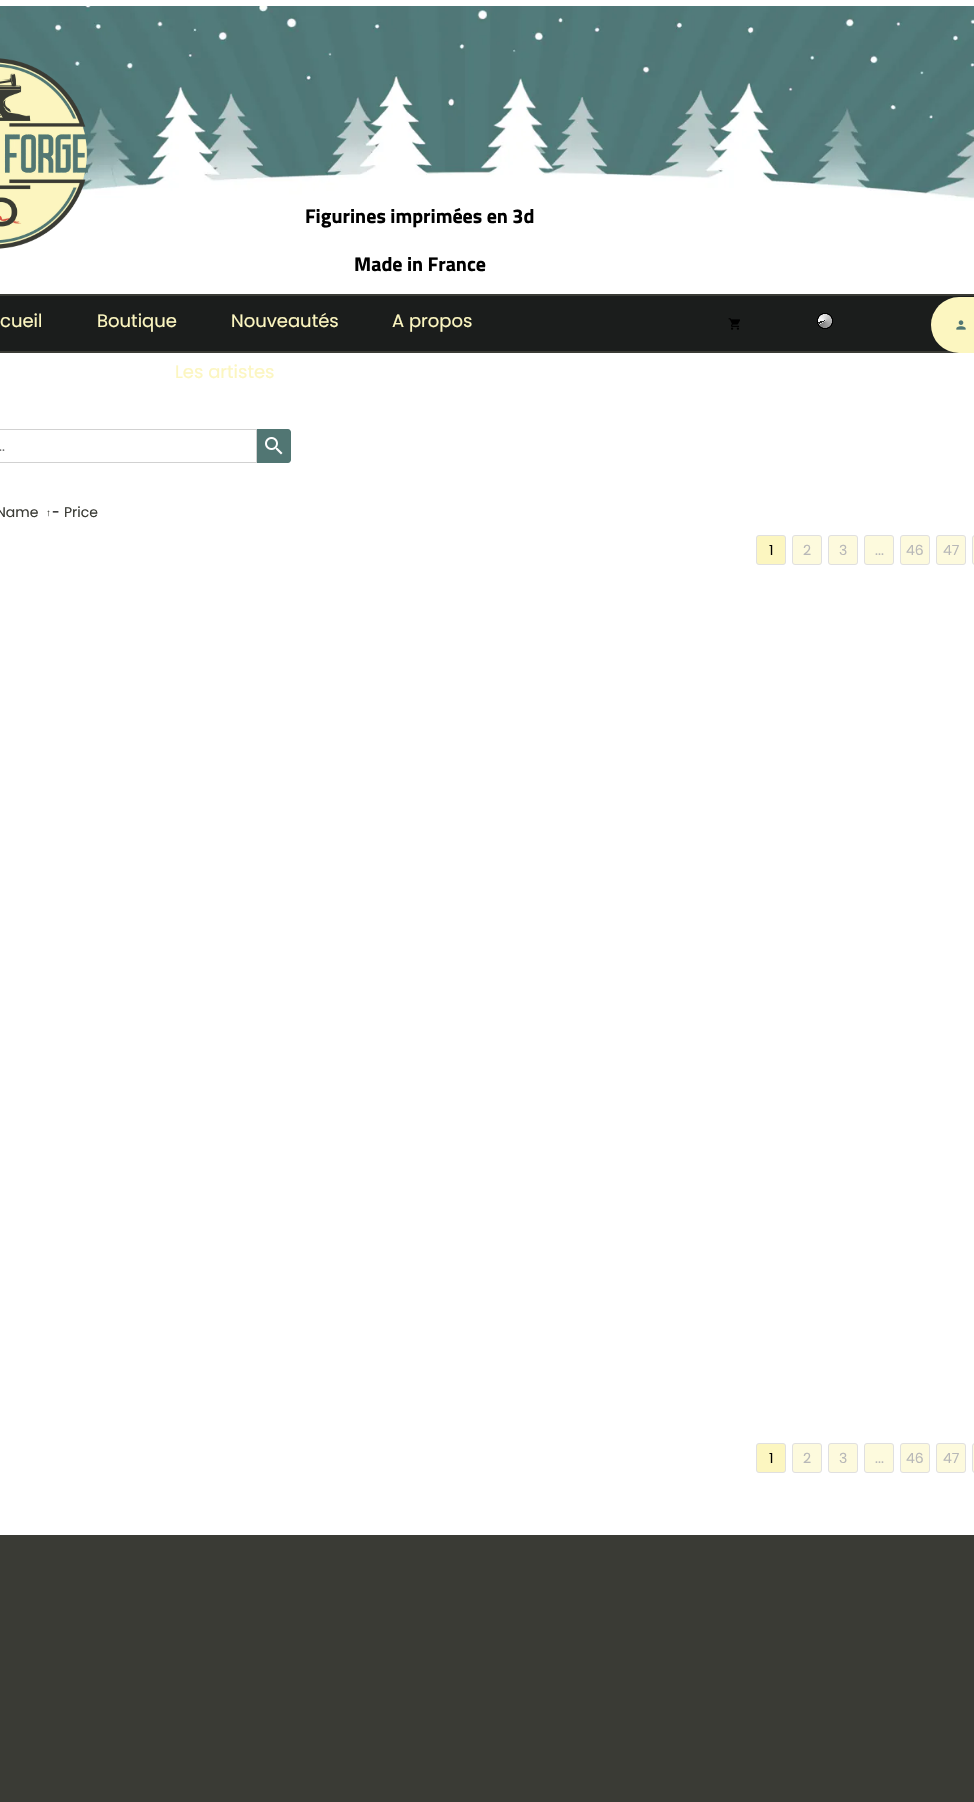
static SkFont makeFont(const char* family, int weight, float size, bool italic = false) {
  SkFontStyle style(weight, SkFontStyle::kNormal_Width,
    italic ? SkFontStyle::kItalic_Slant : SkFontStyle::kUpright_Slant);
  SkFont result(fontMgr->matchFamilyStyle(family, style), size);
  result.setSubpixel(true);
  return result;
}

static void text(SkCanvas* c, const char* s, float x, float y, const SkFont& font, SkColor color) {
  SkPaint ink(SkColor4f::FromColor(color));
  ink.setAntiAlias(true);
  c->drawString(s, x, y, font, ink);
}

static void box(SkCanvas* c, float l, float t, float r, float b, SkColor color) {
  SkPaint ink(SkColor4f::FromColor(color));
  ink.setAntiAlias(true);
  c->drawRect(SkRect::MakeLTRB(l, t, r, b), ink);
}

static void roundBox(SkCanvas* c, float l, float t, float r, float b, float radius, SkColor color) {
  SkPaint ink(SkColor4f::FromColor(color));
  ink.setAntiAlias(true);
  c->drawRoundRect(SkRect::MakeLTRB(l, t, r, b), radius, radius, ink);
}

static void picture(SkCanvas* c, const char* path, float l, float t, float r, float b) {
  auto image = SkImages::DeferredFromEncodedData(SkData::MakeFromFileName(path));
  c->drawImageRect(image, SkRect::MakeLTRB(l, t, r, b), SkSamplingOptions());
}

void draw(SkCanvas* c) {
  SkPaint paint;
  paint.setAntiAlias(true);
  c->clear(0xffffffff);
  picture(c, "img_01.png", 0, 6, 974, 201);
  picture(c, "img_02.png", 0, 58, 88, 249);
  SkFont face1 = makeFont("Titillium Web", 700, 20);
  text(c, "Figurines imprimées en 3d", 305, 223, face1, 0xff000000);
  text(c, "Made in France", 354, 271, face1, 0xff000000);
  box(c, 0, 296, 974, 351, 0xff1b1d1c);
  box(c, 0, 294, 974, 296, 0xff3a3b35);
  box(c, 0, 351, 959, 353, 0xff3a3b35);
  SkFont face2 = makeFont("Poppins", 400, 18);
  text(c, "cueil", 0, 327, face2, 0xfffcf6c0);
  text(c, "Boutique", 97, 327, face2, 0xfffcf6c0);
  text(c, "Nouveautés", 231, 327, face2, 0xfffcf6c0);
  text(c, "A propos", 392, 327, face2, 0xfffcf6c0);
  text(c, "Les artistes", 175, 378, face2, 0xfffcf6c0);
  picture(c, "img_03.png", 728, 318, 740, 330);
  picture(c, "img_04.png", 817, 313, 833, 329);
  roundBox(c, 931, 297, 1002, 353, 28, 0xfffcf6c0);
  picture(c, "img_05.png", 956, 320, 966, 330);
  paint.setStyle(SkPaint::kStroke_Style);
  paint.setStrokeWidth(1);
  paint.setColor(0xffd1d1d1);
  c->drawRect(SkRect::MakeLTRB(-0.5f, 429.5f, 256.5f, 462.5f), paint);
  SkFont face3 = makeFont("Poppins", 400, 14);
  text(c, "..", -1, 451, face3, 0xff757575);
  paint.setStyle(SkPaint::kFill_Style);
  paint.setColor(0xff517673);
  c->drawPath(SkPathBuilder().moveTo(257, 429).lineTo(288, 429).cubicTo(289.5f, 429, 291, 430.5f, 291, 432).lineTo(291, 460).cubicTo(291, 461.5f, 289.5f, 463, 288, 463).lineTo(257, 463).close().detach(), paint);
  picture(c, "img_06.png", 265, 437, 283, 455);
  text(c, "Name", -4, 517, face3, 0xff3a3b35);
  SkFont face4 = makeFont("Liberation Serif", 400, 10);
  text(c, "↑", 46, 516, face4, 0xff3a3b35);
  text(c, "-", 52, 517, face3, 0xff000000);
  text(c, "Price", 64, 517, face3, 0xff3a3b35);
  paint.setColor(0xfffcf6c0);
  c->drawRoundRect(SkRect::MakeLTRB(756.5f, 535.5f, 785.5f, 564.5f), 2.5f, 2.5f, paint);
  paint.setStyle(SkPaint::kStroke_Style);
  paint.setColor(0xffe0e0e0);
  c->drawRoundRect(SkRect::MakeLTRB(756.5f, 535.5f, 785.5f, 564.5f), 2.5f, 2.5f, paint);
  text(c, "1", 769, 555, face3, 0xff000000);
  paint.setStyle(SkPaint::kFill_Style);
  paint.setColor(0xfffdfadd);
  c->drawRoundRect(SkRect::MakeLTRB(792.5f, 535.5f, 821.5f, 564.5f), 2.5f, 2.5f, paint);
  paint.setStyle(SkPaint::kStroke_Style);
  paint.setColor(0xffe0e0e0);
  c->drawRoundRect(SkRect::MakeLTRB(792.5f, 535.5f, 821.5f, 564.5f), 2.5f, 2.5f, paint);
  text(c, "2", 803, 555, face3, 0xffb8b8b8);
  paint.setStyle(SkPaint::kFill_Style);
  paint.setColor(0xfffdfadd);
  c->drawRoundRect(SkRect::MakeLTRB(828.5f, 535.5f, 857.5f, 564.5f), 2.5f, 2.5f, paint);
  paint.setStyle(SkPaint::kStroke_Style);
  paint.setColor(0xffe0e0e0);
  c->drawRoundRect(SkRect::MakeLTRB(828.5f, 535.5f, 857.5f, 564.5f), 2.5f, 2.5f, paint);
  text(c, "3", 839, 555, face3, 0xffb8b8b8);
  paint.setStyle(SkPaint::kFill_Style);
  paint.setColor(0xfffdfadd);
  c->drawRoundRect(SkRect::MakeLTRB(864.5f, 535.5f, 893.5f, 564.5f), 2.5f, 2.5f, paint);
  paint.setStyle(SkPaint::kStroke_Style);
  paint.setColor(0xffe0e0e0);
  c->drawRoundRect(SkRect::MakeLTRB(864.5f, 535.5f, 893.5f, 564.5f), 2.5f, 2.5f, paint);
  text(c, "...", 875, 555, face3, 0xffb8b8b8);
  paint.setStyle(SkPaint::kFill_Style);
  paint.setColor(0xfffdfadd);
  c->drawRoundRect(SkRect::MakeLTRB(900.5f, 535.5f, 929.5f, 564.5f), 2.5f, 2.5f, paint);
  paint.setStyle(SkPaint::kStroke_Style);
  paint.setColor(0xffe0e0e0);
  c->drawRoundRect(SkRect::MakeLTRB(900.5f, 535.5f, 929.5f, 564.5f), 2.5f, 2.5f, paint);
  text(c, "46", 906, 555, face3, 0xffb8b8b8);
  paint.setStyle(SkPaint::kFill_Style);
  paint.setColor(0xfffdfadd);
  c->drawRoundRect(SkRect::MakeLTRB(936.5f, 535.5f, 965.5f, 564.5f), 2.5f, 2.5f, paint);
  paint.setStyle(SkPaint::kStroke_Style);
  paint.setColor(0xffe0e0e0);
  c->drawRoundRect(SkRect::MakeLTRB(936.5f, 535.5f, 965.5f, 564.5f), 2.5f, 2.5f, paint);
  text(c, "47", 943, 555, face3, 0xffb8b8b8);
  paint.setStyle(SkPaint::kFill_Style);
  paint.setColor(0xfffdfadd);
  c->drawRoundRect(SkRect::MakeLTRB(972.5f, 535.5f, 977.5f, 564.5f), 2.5f, 2.5f, paint);
  paint.setStyle(SkPaint::kStroke_Style);
  paint.setColor(0xffe0e0e0);
  c->drawRoundRect(SkRect::MakeLTRB(972.5f, 535.5f, 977.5f, 564.5f), 2.5f, 2.5f, paint);
  paint.setStyle(SkPaint::kFill_Style);
  paint.setColor(0xfffcf6c0);
  c->drawRoundRect(SkRect::MakeLTRB(756.5f, 1443.5f, 785.5f, 1472.5f), 2.5f, 2.5f, paint);
  paint.setStyle(SkPaint::kStroke_Style);
  paint.setColor(0xffe0e0e0);
  c->drawRoundRect(SkRect::MakeLTRB(756.5f, 1443.5f, 785.5f, 1472.5f), 2.5f, 2.5f, paint);
  text(c, "1", 769, 1463, face3, 0xff000000);
  paint.setStyle(SkPaint::kFill_Style);
  paint.setColor(0xfffdfadd);
  c->drawRoundRect(SkRect::MakeLTRB(792.5f, 1443.5f, 821.5f, 1472.5f), 2.5f, 2.5f, paint);
  paint.setStyle(SkPaint::kStroke_Style);
  paint.setColor(0xffe0e0e0);
  c->drawRoundRect(SkRect::MakeLTRB(792.5f, 1443.5f, 821.5f, 1472.5f), 2.5f, 2.5f, paint);
  text(c, "2", 803, 1463, face3, 0xffb8b8b8);
  paint.setStyle(SkPaint::kFill_Style);
  paint.setColor(0xfffdfadd);
  c->drawRoundRect(SkRect::MakeLTRB(828.5f, 1443.5f, 857.5f, 1472.5f), 2.5f, 2.5f, paint);
  paint.setStyle(SkPaint::kStroke_Style);
  paint.setColor(0xffe0e0e0);
  c->drawRoundRect(SkRect::MakeLTRB(828.5f, 1443.5f, 857.5f, 1472.5f), 2.5f, 2.5f, paint);
  text(c, "3", 839, 1463, face3, 0xffb8b8b8);
  paint.setStyle(SkPaint::kFill_Style);
  paint.setColor(0xfffdfadd);
  c->drawRoundRect(SkRect::MakeLTRB(864.5f, 1443.5f, 893.5f, 1472.5f), 2.5f, 2.5f, paint);
  paint.setStyle(SkPaint::kStroke_Style);
  paint.setColor(0xffe0e0e0);
  c->drawRoundRect(SkRect::MakeLTRB(864.5f, 1443.5f, 893.5f, 1472.5f), 2.5f, 2.5f, paint);
  text(c, "...", 875, 1463, face3, 0xffb8b8b8);
  paint.setStyle(SkPaint::kFill_Style);
  paint.setColor(0xfffdfadd);
  c->drawRoundRect(SkRect::MakeLTRB(900.5f, 1443.5f, 929.5f, 1472.5f), 2.5f, 2.5f, paint);
  paint.setStyle(SkPaint::kStroke_Style);
  paint.setColor(0xffe0e0e0);
  c->drawRoundRect(SkRect::MakeLTRB(900.5f, 1443.5f, 929.5f, 1472.5f), 2.5f, 2.5f, paint);
  text(c, "46", 906, 1463, face3, 0xffb8b8b8);
  paint.setStyle(SkPaint::kFill_Style);
  paint.setColor(0xfffdfadd);
  c->drawRoundRect(SkRect::MakeLTRB(936.5f, 1443.5f, 965.5f, 1472.5f), 2.5f, 2.5f, paint);
  paint.setStyle(SkPaint::kStroke_Style);
  paint.setColor(0xffe0e0e0);
  c->drawRoundRect(SkRect::MakeLTRB(936.5f, 1443.5f, 965.5f, 1472.5f), 2.5f, 2.5f, paint);
  text(c, "47", 943, 1463, face3, 0xffb8b8b8);
  paint.setStyle(SkPaint::kFill_Style);
  paint.setColor(0xfffdfadd);
  c->drawRoundRect(SkRect::MakeLTRB(972.5f, 1443.5f, 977.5f, 1472.5f), 2.5f, 2.5f, paint);
  paint.setStyle(SkPaint::kStroke_Style);
  paint.setColor(0xffe0e0e0);
  c->drawRoundRect(SkRect::MakeLTRB(972.5f, 1443.5f, 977.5f, 1472.5f), 2.5f, 2.5f, paint);
  box(c, 0, 1535, 974, 1802, 0xff3a3b35);
}
